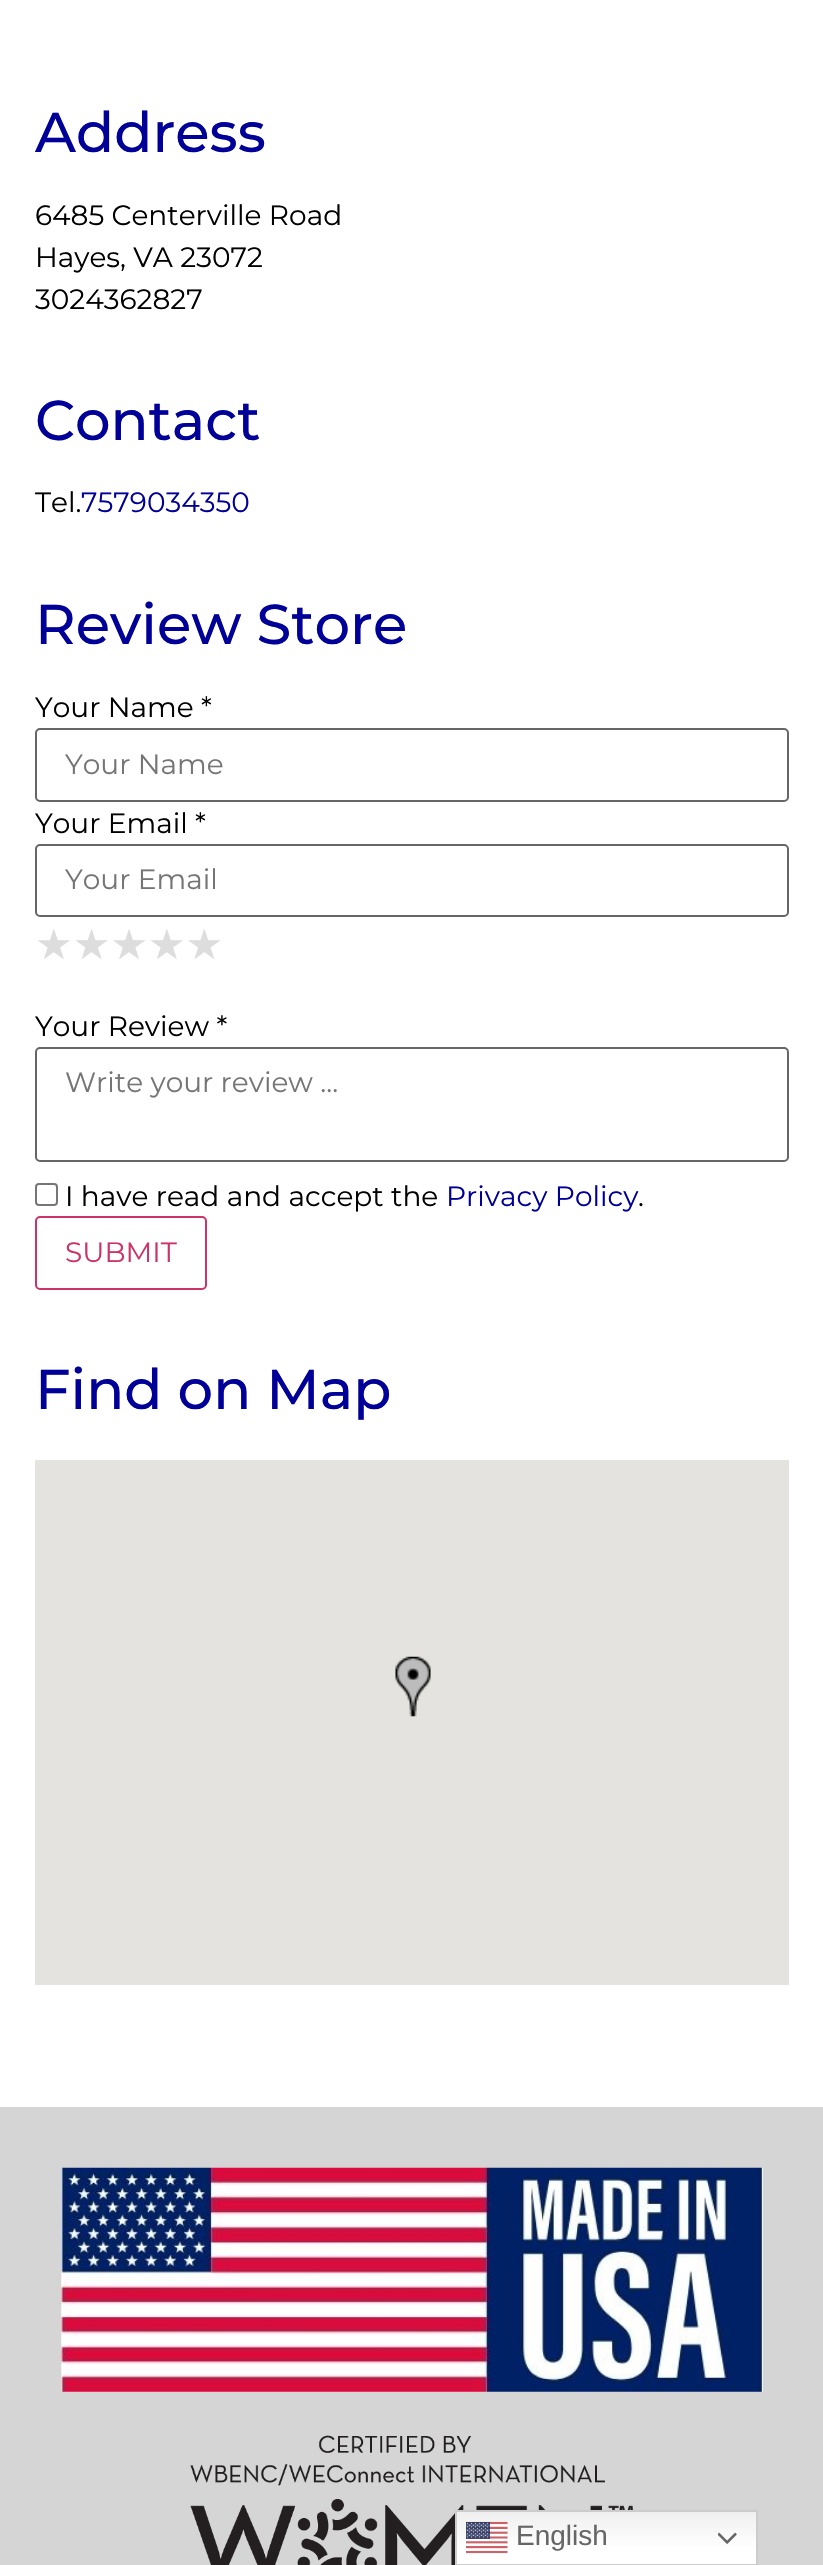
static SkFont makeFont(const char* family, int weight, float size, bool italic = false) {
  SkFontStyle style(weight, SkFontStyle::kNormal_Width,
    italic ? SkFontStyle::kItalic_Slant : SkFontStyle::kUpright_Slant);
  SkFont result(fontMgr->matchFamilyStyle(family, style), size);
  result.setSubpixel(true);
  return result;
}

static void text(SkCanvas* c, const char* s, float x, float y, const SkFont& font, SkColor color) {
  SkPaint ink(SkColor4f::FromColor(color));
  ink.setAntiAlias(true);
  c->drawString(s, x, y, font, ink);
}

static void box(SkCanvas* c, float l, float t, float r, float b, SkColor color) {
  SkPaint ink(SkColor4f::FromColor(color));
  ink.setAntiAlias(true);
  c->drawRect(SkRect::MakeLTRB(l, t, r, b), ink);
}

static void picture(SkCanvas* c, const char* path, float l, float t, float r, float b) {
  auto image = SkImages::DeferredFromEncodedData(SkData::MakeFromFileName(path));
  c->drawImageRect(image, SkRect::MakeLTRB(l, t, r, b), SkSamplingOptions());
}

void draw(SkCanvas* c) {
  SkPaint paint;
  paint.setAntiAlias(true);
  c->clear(0xffffffff);
  SkFont face1 = makeFont("Montserrat", 500, 56);
  text(c, "Address", 35, 152, face1, 0xff000099);
  SkFont face2 = makeFont("Montserrat", 400, 28);
  text(c, "6485 Centerville Road", 35, 225, face2, 0xff000000);
  text(c, "Hayes, VA 23072", 35, 267, face2, 0xff000000);
  text(c, "3024362827", 35, 309, face2, 0xff000000);
  text(c, "Contact", 35, 440, face1, 0xff000099);
  text(c, "Tel.", 35, 512, face2, 0xff000000);
  text(c, "7579034350", 81, 512, face2, 0xff000099);
  text(c, "Review Store", 35, 644, face1, 0xff000099);
  text(c, "Your Name *", 35, 717, face2, 0xff000000);
  paint.setStyle(SkPaint::kStroke_Style);
  paint.setStrokeWidth(2);
  paint.setColor(0xff666666);
  c->drawRoundRect(SkRect::MakeLTRB(36, 729, 788, 801), 4, 4, paint);
  text(c, "Your Name", 65, 774, face2, 0xff757575);
  text(c, "Your Email *", 35, 833, face2, 0xff000000);
  c->drawRoundRect(SkRect::MakeLTRB(36, 845, 788, 916), 4, 4, paint);
  text(c, "Your Email", 65, 889, face2, 0xff757575);
  SkFont face3 = makeFont("DejaVu Sans", 400, 42);
  text(c, "★★★★★", 35, 959, face3, 0xffdddddd);
  text(c, "Your Review *", 35, 1036, face2, 0xff000000);
  c->drawRoundRect(SkRect::MakeLTRB(36, 1048, 788, 1161), 4, 4, paint);
  text(c, "Write your review ...", 65, 1092, face2, 0xff757575);
  paint.setColor(0xff767676);
  c->drawRoundRect(SkRect::MakeLTRB(36, 1184, 57, 1205), 3, 3, paint);
  text(c, "I have read and accept the", 65, 1206, face2, 0xff000000);
  text(c, "Privacy Policy", 446, 1206, face2, 0xff000099);
  text(c, ".", 638, 1206, face2, 0xff000000);
  paint.setColor(0xffcc3366);
  c->drawRoundRect(SkRect::MakeLTRB(36, 1217, 206, 1289), 4, 4, paint);
  text(c, "SUBMIT", 65, 1262, face2, 0xffcc3366);
  text(c, "Find on Map", 35, 1409, face1, 0xff000099);
  box(c, 35, 1460, 789, 1985, 0xffe5e3df);
  picture(c, "img_01.png", 395, 1656, 431, 1717);
  box(c, 0, 2107, 823, 2565, 0xffd5d5d5);
  picture(c, "img_02.png", 61, 2167, 763, 2392);
  picture(c, "img_03.png", 190, 2435, 633, 2565);
  paint.setStyle(SkPaint::kFill_Style);
  {
    const SkColor colors[] = {0xffefefef, 0xffffffff};
    const float stops[] = {0, 0.7f};
    const SkPoint ends[] = {{606, 2510}, {606, 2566}};
    paint.setShader(SkGradientShader::MakeLinear(ends, colors, stops, 2, SkTileMode::kClamp));
    paint.setAlpha(255);
  }
  c->drawRect(SkRect::MakeLTRB(457, 2512, 756, 2564), paint);
  paint.setStyle(SkPaint::kStroke_Style);
  paint.setShader(nullptr);
  paint.setColor(0xffcccccc);
  c->drawRect(SkRect::MakeLTRB(456, 2511, 757, 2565), paint);
  picture(c, "img_04.png", 466, 2521, 508, 2554);
  SkFont face4 = makeFont("Liberation Sans", 400, 28);
  text(c, "English", 516, 2545, face4, 0xff666666);
  picture(c, "img_05.png", 718, 2532, 737, 2544);
}
